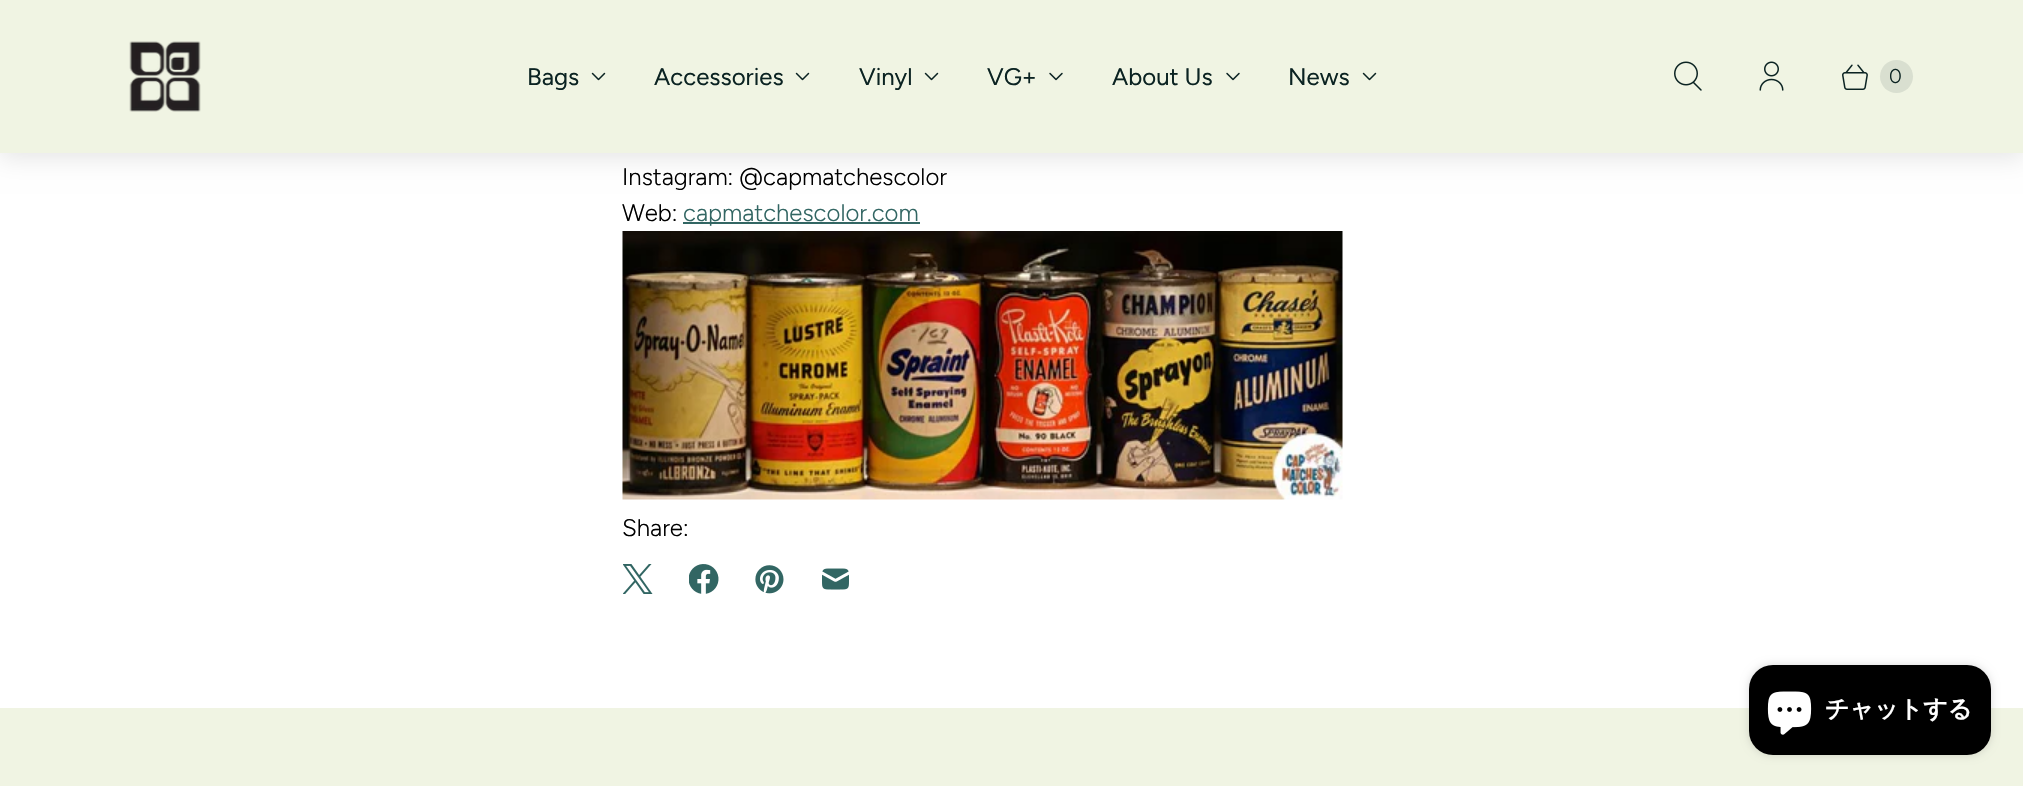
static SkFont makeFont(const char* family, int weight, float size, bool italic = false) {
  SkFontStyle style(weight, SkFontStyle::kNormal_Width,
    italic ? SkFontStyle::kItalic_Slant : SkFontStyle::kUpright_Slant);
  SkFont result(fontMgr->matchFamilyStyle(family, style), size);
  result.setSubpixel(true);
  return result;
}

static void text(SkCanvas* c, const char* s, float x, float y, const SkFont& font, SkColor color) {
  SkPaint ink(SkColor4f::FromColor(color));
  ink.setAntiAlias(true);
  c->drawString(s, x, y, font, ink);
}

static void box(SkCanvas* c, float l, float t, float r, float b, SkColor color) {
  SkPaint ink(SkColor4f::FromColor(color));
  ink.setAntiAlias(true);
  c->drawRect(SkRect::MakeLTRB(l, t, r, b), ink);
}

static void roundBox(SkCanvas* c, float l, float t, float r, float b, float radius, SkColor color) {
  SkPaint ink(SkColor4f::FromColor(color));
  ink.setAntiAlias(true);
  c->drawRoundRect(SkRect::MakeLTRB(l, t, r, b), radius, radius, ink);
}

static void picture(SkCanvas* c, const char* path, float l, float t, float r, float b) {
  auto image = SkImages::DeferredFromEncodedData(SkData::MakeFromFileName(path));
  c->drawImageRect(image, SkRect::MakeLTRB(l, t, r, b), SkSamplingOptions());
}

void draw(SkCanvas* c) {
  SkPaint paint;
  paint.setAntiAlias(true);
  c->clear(0xffffffff);
  paint.setColor(0x1a000000);
  paint.setMaskFilter(SkMaskFilter::MakeBlur(kNormal_SkBlurStyle, 12));
  c->drawRect(SkRect::MakeLTRB(-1, -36, 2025, 158), paint);
  paint.setMaskFilter(nullptr);
  box(c, 0, 0, 2023, 153, 0xfff0f4e3);
  picture(c, "img_01.png", 129, 41, 201, 112);
  SkFont face1 = makeFont("Figtree", 400, 24);
  text(c, "Bags", 527, 85, face1, 0xff0b2322);
  picture(c, "img_02.png", 591, 72, 606, 81);
  text(c, "Accessories", 654, 85, face1, 0xff0b2322);
  picture(c, "img_02.png", 795, 72, 810, 81);
  text(c, "Vinyl", 859, 85, face1, 0xff0b2322);
  picture(c, "img_02.png", 924, 72, 939, 81);
  text(c, "VG+", 987, 85, face1, 0xff0b2322);
  picture(c, "img_03.png", 1049, 72, 1063, 81);
  text(c, "About Us", 1112, 85, face1, 0xff0b2322);
  picture(c, "img_03.png", 1226, 72, 1240, 81);
  text(c, "News", 1288, 85, face1, 0xff0b2322);
  picture(c, "img_02.png", 1362, 72, 1377, 81);
  picture(c, "img_04.png", 1674, 61, 1702, 91);
  picture(c, "img_05.png", 1759, 61, 1784, 91);
  picture(c, "img_06.png", 1842, 64, 1868, 90);
  paint.setColor(0xffd9dfd0);
  c->drawCircle(1896.5f, 76.5f, 16.5f, paint);
  SkFont face2 = makeFont("Figtree", 300, 20);
  text(c, "0", 1889, 83, face2, 0xff0b2322);
  SkFont face3 = makeFont("Figtree", 300, 24);
  text(c, "Instagram: @capmatchescolor", 622, 185, face3, 0xff000000);
  text(c, "Web:", 622, 221, face3, 0xff000000);
  box(c, 683, 222, 920, 224, 0xff326663);
  text(c, "capmatchescolor.com", 683, 221, face3, 0xff326663);
  picture(c, "img_07.png", 622, 231, 1343, 500);
  text(c, "Share:", 622, 536, face3, 0xff000000);
  picture(c, "img_08.png", 623, 564, 653, 594);
  picture(c, "img_09.png", 689, 564, 719, 594);
  picture(c, "img_10.png", 755, 565, 784, 594);
  picture(c, "img_11.png", 822, 568, 849, 590);
  box(c, 0, 708, 2023, 786, 0xfff0f4e3);
  paint.setColor(0x26000000);
  paint.setMaskFilter(SkMaskFilter::MakeBlur(kNormal_SkBlurStyle, 4));
  c->drawRoundRect(SkRect::MakeLTRB(1749, 665, 1991, 755), 24, 24, paint);
  paint.setMaskFilter(nullptr);
  roundBox(c, 1749, 665, 1991, 755, 24, 0xff000000);
  picture(c, "img_12.png", 1767, 691, 1812, 735);
  SkFont face4 = makeFont("WenQuanYi Zen Hei", 700, 24);
  text(c, "チャットする", 1825, 717, face4, 0xffffffff);
}
